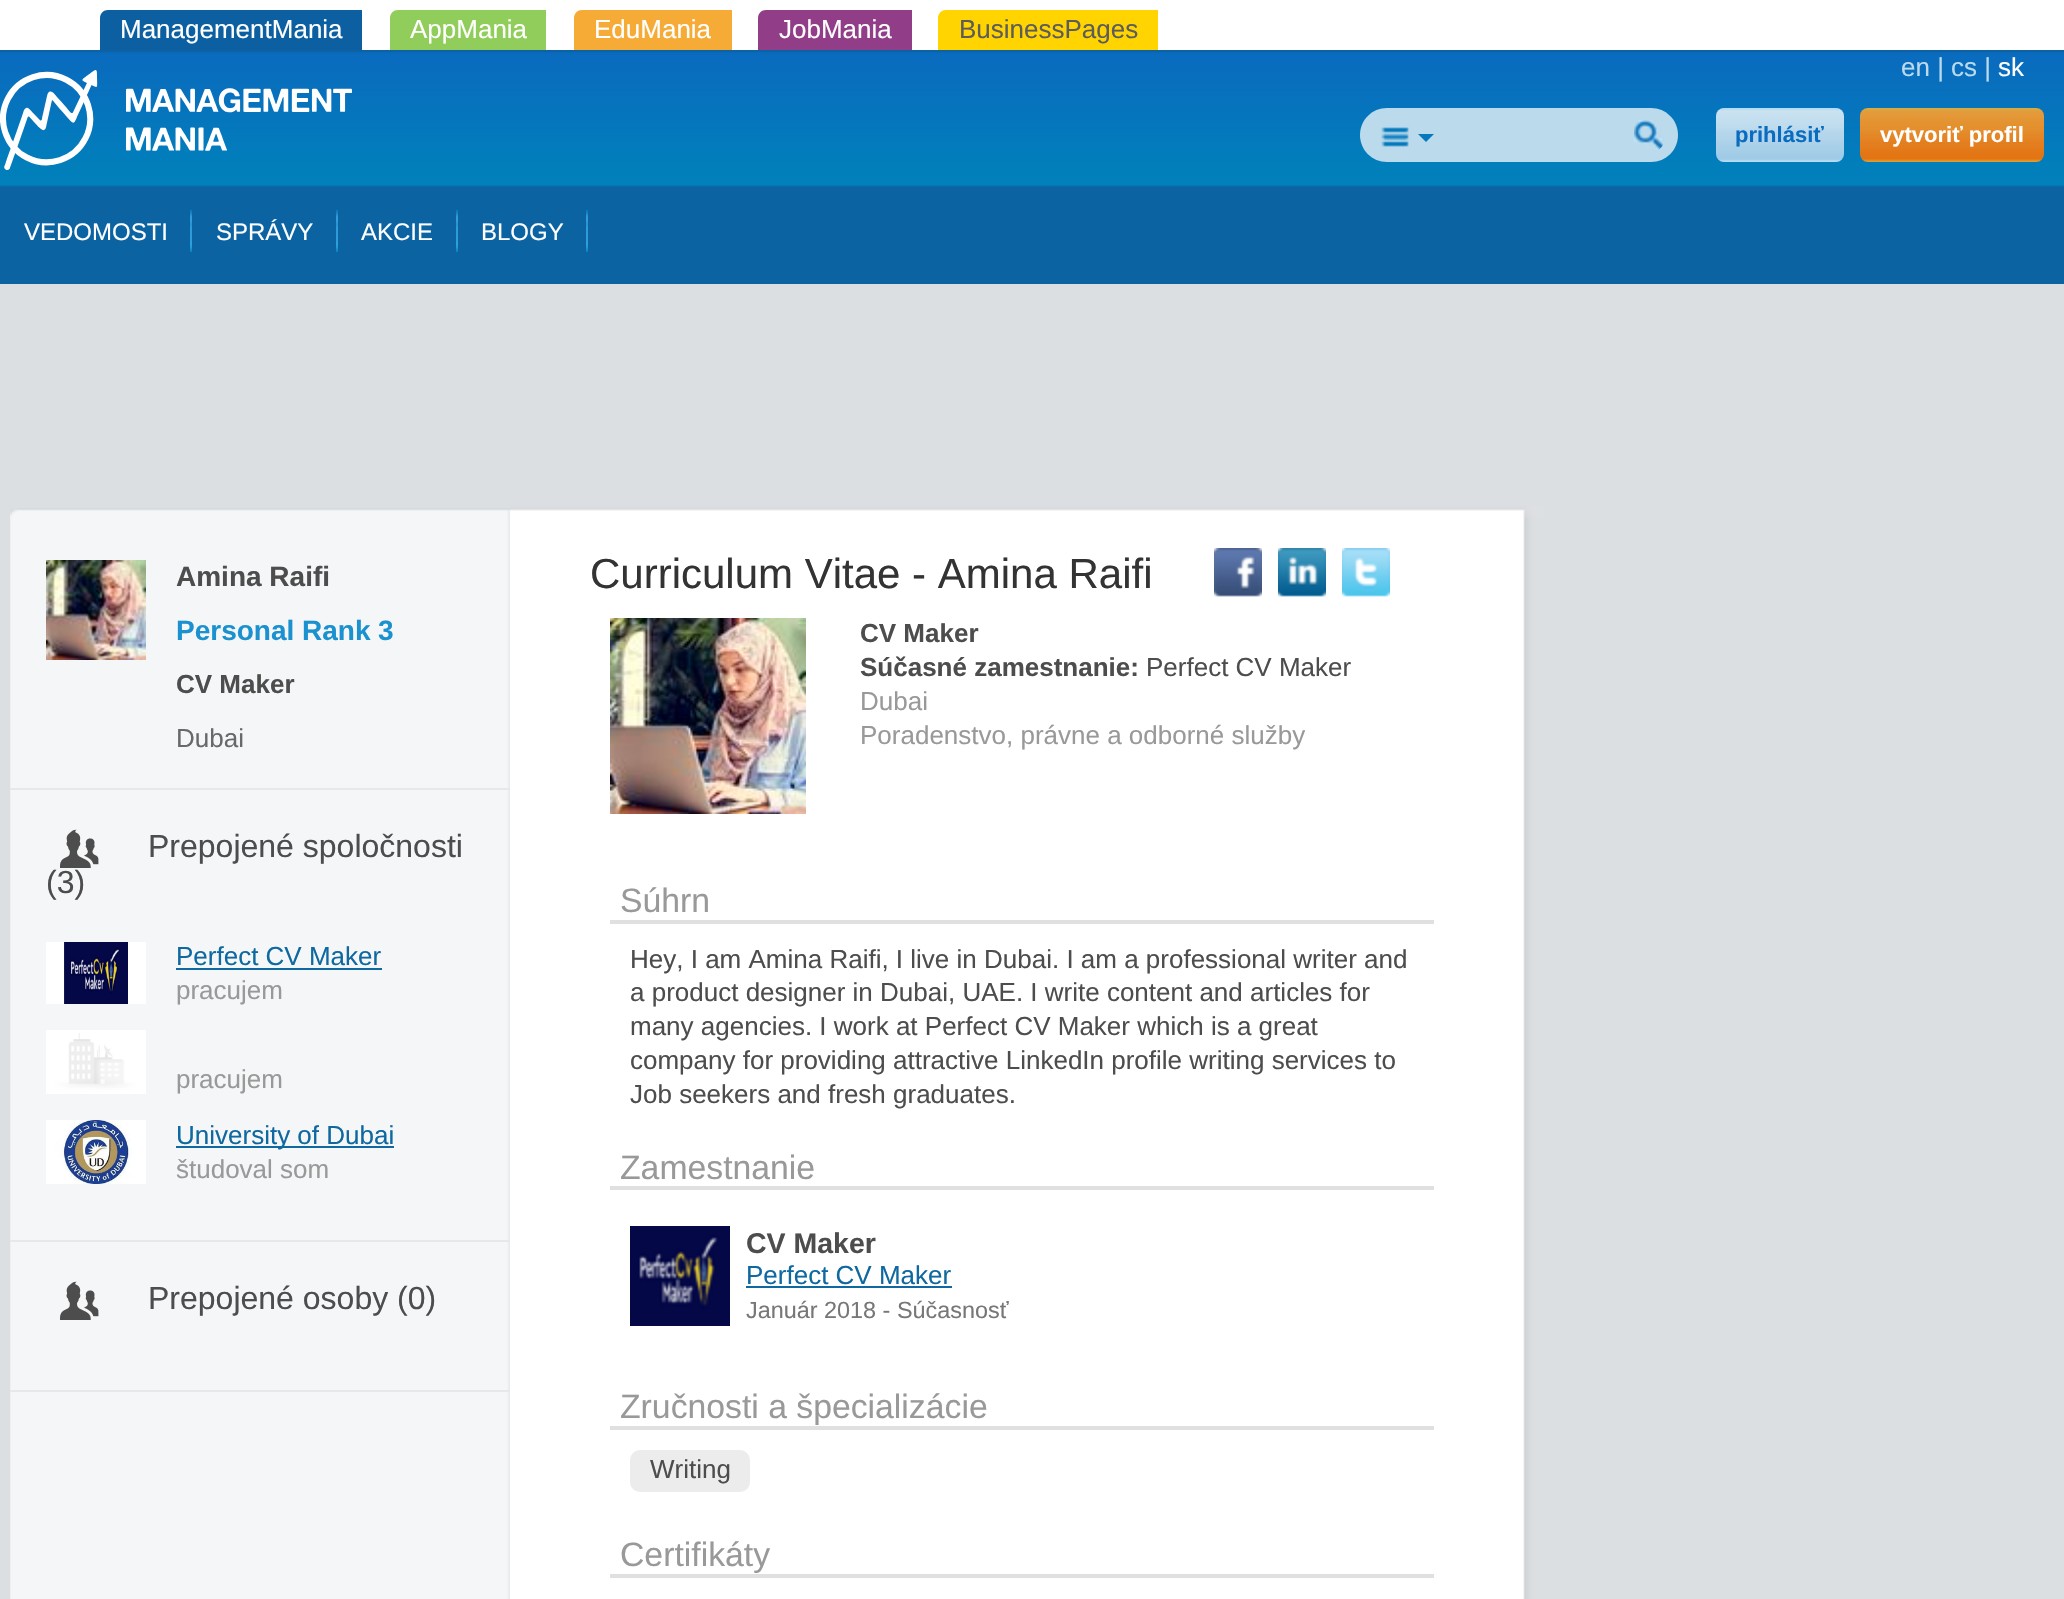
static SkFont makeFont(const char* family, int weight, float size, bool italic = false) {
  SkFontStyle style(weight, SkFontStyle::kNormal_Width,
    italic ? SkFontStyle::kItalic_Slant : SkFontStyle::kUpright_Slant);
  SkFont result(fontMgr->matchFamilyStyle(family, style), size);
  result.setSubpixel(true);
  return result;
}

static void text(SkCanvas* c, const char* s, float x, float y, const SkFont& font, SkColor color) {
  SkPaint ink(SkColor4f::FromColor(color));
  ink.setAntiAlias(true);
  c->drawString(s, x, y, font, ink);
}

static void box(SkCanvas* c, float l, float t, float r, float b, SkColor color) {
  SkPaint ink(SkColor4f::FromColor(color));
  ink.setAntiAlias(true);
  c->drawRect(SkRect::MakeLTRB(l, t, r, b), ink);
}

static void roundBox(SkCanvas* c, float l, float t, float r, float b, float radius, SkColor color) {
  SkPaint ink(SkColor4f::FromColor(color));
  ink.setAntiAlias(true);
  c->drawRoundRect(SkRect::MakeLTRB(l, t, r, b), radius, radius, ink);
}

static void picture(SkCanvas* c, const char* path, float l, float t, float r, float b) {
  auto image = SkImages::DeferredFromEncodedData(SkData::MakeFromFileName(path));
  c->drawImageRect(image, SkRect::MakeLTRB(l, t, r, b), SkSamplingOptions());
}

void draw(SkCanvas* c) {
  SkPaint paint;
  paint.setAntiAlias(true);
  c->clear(0xffdcdfe2);
  box(c, 0, 0, 2064, 50, 0xffffffff);
  paint.setColor(0xff0c60a2);
  c->drawPath(SkPathBuilder().moveTo(108, 10).lineTo(362, 10).lineTo(362, 50).lineTo(100, 50).lineTo(100, 18).cubicTo(100, 13.5f, 103.5f, 10, 108, 10).close().detach(), paint);
  SkFont face1 = makeFont("Liberation Sans", 400, 26);
  text(c, "ManagementMania", 120, 38, face1, 0xffffffff);
  paint.setColor(0xff90cd5a);
  c->drawPath(SkPathBuilder().moveTo(398, 10).lineTo(546, 10).lineTo(546, 50).lineTo(390, 50).lineTo(390, 18).cubicTo(390, 13.5f, 393.5f, 10, 398, 10).close().detach(), paint);
  text(c, "AppMania", 410, 38, face1, 0xffffffff);
  paint.setColor(0xfff5ab35);
  c->drawPath(SkPathBuilder().moveTo(582, 10).lineTo(732, 10).lineTo(732, 50).lineTo(574, 50).lineTo(574, 18).cubicTo(574, 13.5f, 577.5f, 10, 582, 10).close().detach(), paint);
  text(c, "EduMania", 594, 38, face1, 0xffffffff);
  paint.setColor(0xff913d88);
  c->drawPath(SkPathBuilder().moveTo(766, 10).lineTo(912, 10).lineTo(912, 50).lineTo(758, 50).lineTo(758, 18).cubicTo(758, 13.5f, 761.5f, 10, 766, 10).close().detach(), paint);
  text(c, "JobMania", 779, 38, face1, 0xffffffff);
  paint.setColor(0xffffd400);
  c->drawPath(SkPathBuilder().moveTo(946, 10).lineTo(1158, 10).lineTo(1158, 50).lineTo(938, 50).lineTo(938, 18).cubicTo(938, 13.5f, 941.5f, 10, 946, 10).close().detach(), paint);
  text(c, "BusinessPages", 959, 38, face1, 0xff5c5c5c);
  box(c, 0, 50, 2064, 284, 0xff0b63a1);
  picture(c, "img_01.png", 0, 51, 2064, 187);
  picture(c, "img_02.png", 0, 70, 352, 170);
  text(c, "en | cs |", 1901, 76, face1, 0xffbbdaec);
  text(c, "sk", 1998, 76, face1, 0xffffffff);
  paint.setColor(0xffbbdaec);
  c->drawPath(SkPathBuilder().moveTo(1387, 108).lineTo(1424, 108).lineTo(1424, 162).lineTo(1387, 162).cubicTo(1372, 162, 1360, 150, 1360, 135).cubicTo(1360, 120, 1372, 108, 1387, 108).close().detach(), paint);
  picture(c, "img_03.png", 1381, 127, 1409, 147);
  box(c, 1424, 108, 1614, 162, 0xffbbdaec);
  paint.setColor(0xff0479bc);
  c->drawPath(SkPathBuilder().moveTo(1418, 134).lineTo(1434, 134).lineTo(1426, 142).close().detach(), paint);
  paint.setColor(0xffbbdaec);
  c->drawPath(SkPathBuilder().moveTo(1614, 108).lineTo(1651, 108).cubicTo(1666, 108, 1678, 120, 1678, 135).cubicTo(1678, 150, 1666, 162, 1651, 162).lineTo(1614, 162).close().detach(), paint);
  picture(c, "img_04.png", 1634, 120, 1664, 150);
  picture(c, "img_05.png", 1716, 108, 1844, 162);
  SkFont face2 = makeFont("Liberation Sans", 700, 22);
  text(c, "prihlásiť", 1735, 142, face2, 0xff096cbf);
  picture(c, "img_06.png", 1860, 108, 2044, 162);
  text(c, "vytvoriť profil", 1880, 142, face2, 0xffffffff);
  picture(c, "img_07.png", 190, 210, 192, 252);
  SkFont face3 = makeFont("Liberation Sans", 400, 24);
  text(c, "VEDOMOSTI", 24, 240, face3, 0xffffffff);
  picture(c, "img_07.png", 336, 210, 338, 252);
  text(c, "SPRÁVY", 216, 240, face3, 0xffffffff);
  picture(c, "img_07.png", 456, 210, 458, 252);
  text(c, "AKCIE", 361, 240, face3, 0xffffffff);
  picture(c, "img_07.png", 586, 210, 588, 252);
  text(c, "BLOGY", 481, 240, face3, 0xffffffff);
  picture(c, "img_08.png", 10, 508, 510, 518);
  picture(c, "img_09.png", 510, 506, 1544, 518);
  picture(c, "img_10.png", 10, 518, 510, 1599);
  box(c, 10, 788, 510, 790, 0xffe7e8ea);
  picture(c, "img_11.png", 46, 560, 146, 660);
  SkFont face4 = makeFont("Liberation Sans", 700, 28);
  text(c, "Amina Raifi", 176, 586, face4, 0xff4d4d4d);
  text(c, "Personal Rank", 176, 640, face4, 0xff1b91cf);
  text(c, "3", 378, 640, face4, 0xff1b91cf);
  SkFont face5 = makeFont("Liberation Sans", 700, 26);
  text(c, "CV Maker", 176, 693, face5, 0xff4d4d4d);
  text(c, "Dubai", 176, 747, face1, 0xff696969);
  box(c, 10, 1240, 510, 1242, 0xffe7e8ea);
  picture(c, "img_12.png", 60, 829, 99, 868);
  SkFont face6 = makeFont("Liberation Sans", 400, 32);
  text(c, "Prepojené spoločnosti", 148, 857, face6, 0xff4d4d4d);
  text(c, "(3)", 46, 893, face6, 0xff4d4d4d);
  picture(c, "img_13.png", 46, 942, 146, 1004);
  text(c, "Perfect CV Maker", 176, 965, face1, 0xff0f69a0);
  box(c, 176, 968, 382, 970, 0xff0f69a0);
  text(c, "pracujem", 176, 999, face1, 0xff999999);
  picture(c, "img_14.png", 46, 1030, 146, 1094);
  text(c, "pracujem", 176, 1088, face1, 0xff999999);
  picture(c, "img_15.png", 46, 1120, 146, 1184);
  box(c, 176, 1146, 394, 1148, 0xff0f69a0);
  text(c, "University of Dubai", 176, 1144, face1, 0xff0f69a0);
  text(c, "študoval som", 176, 1178, face1, 0xff999999);
  box(c, 10, 1390, 510, 1392, 0xffe7e8ea);
  picture(c, "img_12.png", 60, 1281, 99, 1320);
  text(c, "Prepojené osoby (0)", 148, 1309, face6, 0xff4d4d4d);
  box(c, 510, 518, 1525, 1599, 0xffffffff);
  picture(c, "img_16.png", 1523, 518, 1544, 1599);
  SkFont face7 = makeFont("Liberation Sans", 400, 42);
  text(c, "Curriculum Vitae - Amina Raifi", 590, 588, face7, 0xff333333);
  picture(c, "img_17.png", 1214, 548, 1262, 597);
  picture(c, "img_18.png", 1278, 548, 1326, 597);
  picture(c, "img_19.png", 1342, 548, 1390, 597);
  picture(c, "img_20.png", 610, 618, 806, 814);
  text(c, "CV Maker", 860, 642, face5, 0xff4d4d4d);
  text(c, "Súčasné zamestnanie:", 860, 676, face5, 0xff4d4d4d);
  text(c, "Perfect CV Maker", 1146, 676, face1, 0xff4d4d4d);
  text(c, "Dubai", 860, 710, face1, 0xff999999);
  text(c, "Poradenstvo, právne a odborné služby", 860, 744, face1, 0xff999999);
  box(c, 610, 920, 1434, 924, 0xffe0e0e0);
  SkFont face8 = makeFont("Liberation Sans", 400, 33.75f);
  text(c, "Súhrn", 620, 912, face8, 0xff999999);
  text(c, "Hey, I am Amina Raifi, I live in Dubai. I am a professional writer and", 630, 968, face1, 0xff4d4d4d);
  text(c, "a product designer in Dubai, UAE. I write content and articles for", 630, 1001, face1, 0xff4d4d4d);
  text(c, "many agencies. I work at Perfect CV Maker which is a great", 630, 1035, face1, 0xff4d4d4d);
  text(c, "company for providing attractive LinkedIn profile writing services to", 630, 1069, face1, 0xff4d4d4d);
  text(c, "Job seekers and fresh graduates.", 630, 1103, face1, 0xff4d4d4d);
  box(c, 610, 1186, 1434, 1190, 0xffe0e0e0);
  text(c, "Zamestnanie", 620, 1179, face8, 0xff999999);
  picture(c, "img_21.png", 630, 1226, 730, 1326);
  SkFont face9 = makeFont("Liberation Sans", 700, 28.5f);
  text(c, "CV Maker", 746, 1253, face9, 0xff4d4d4d);
  text(c, "Perfect CV Maker", 746, 1284, face1, 0xff0f69a0);
  box(c, 746, 1286, 952, 1288, 0xff0f69a0);
  SkFont face10 = makeFont("Liberation Sans", 400, 23.4f);
  text(c, "Január 2018 - Súčasnosť", 746, 1318, face10, 0xff777777);
  box(c, 610, 1426, 1434, 1430, 0xffe0e0e0);
  text(c, "Zručnosti a špecializácie", 620, 1418, face8, 0xff999999);
  roundBox(c, 630, 1450, 750, 1492, 10, 0xffececec);
  text(c, "Writing", 650, 1478, face1, 0xff4d4d4d);
  box(c, 610, 1574, 1434, 1578, 0xffe0e0e0);
  text(c, "Certifikáty", 620, 1566, face8, 0xff999999);
}
